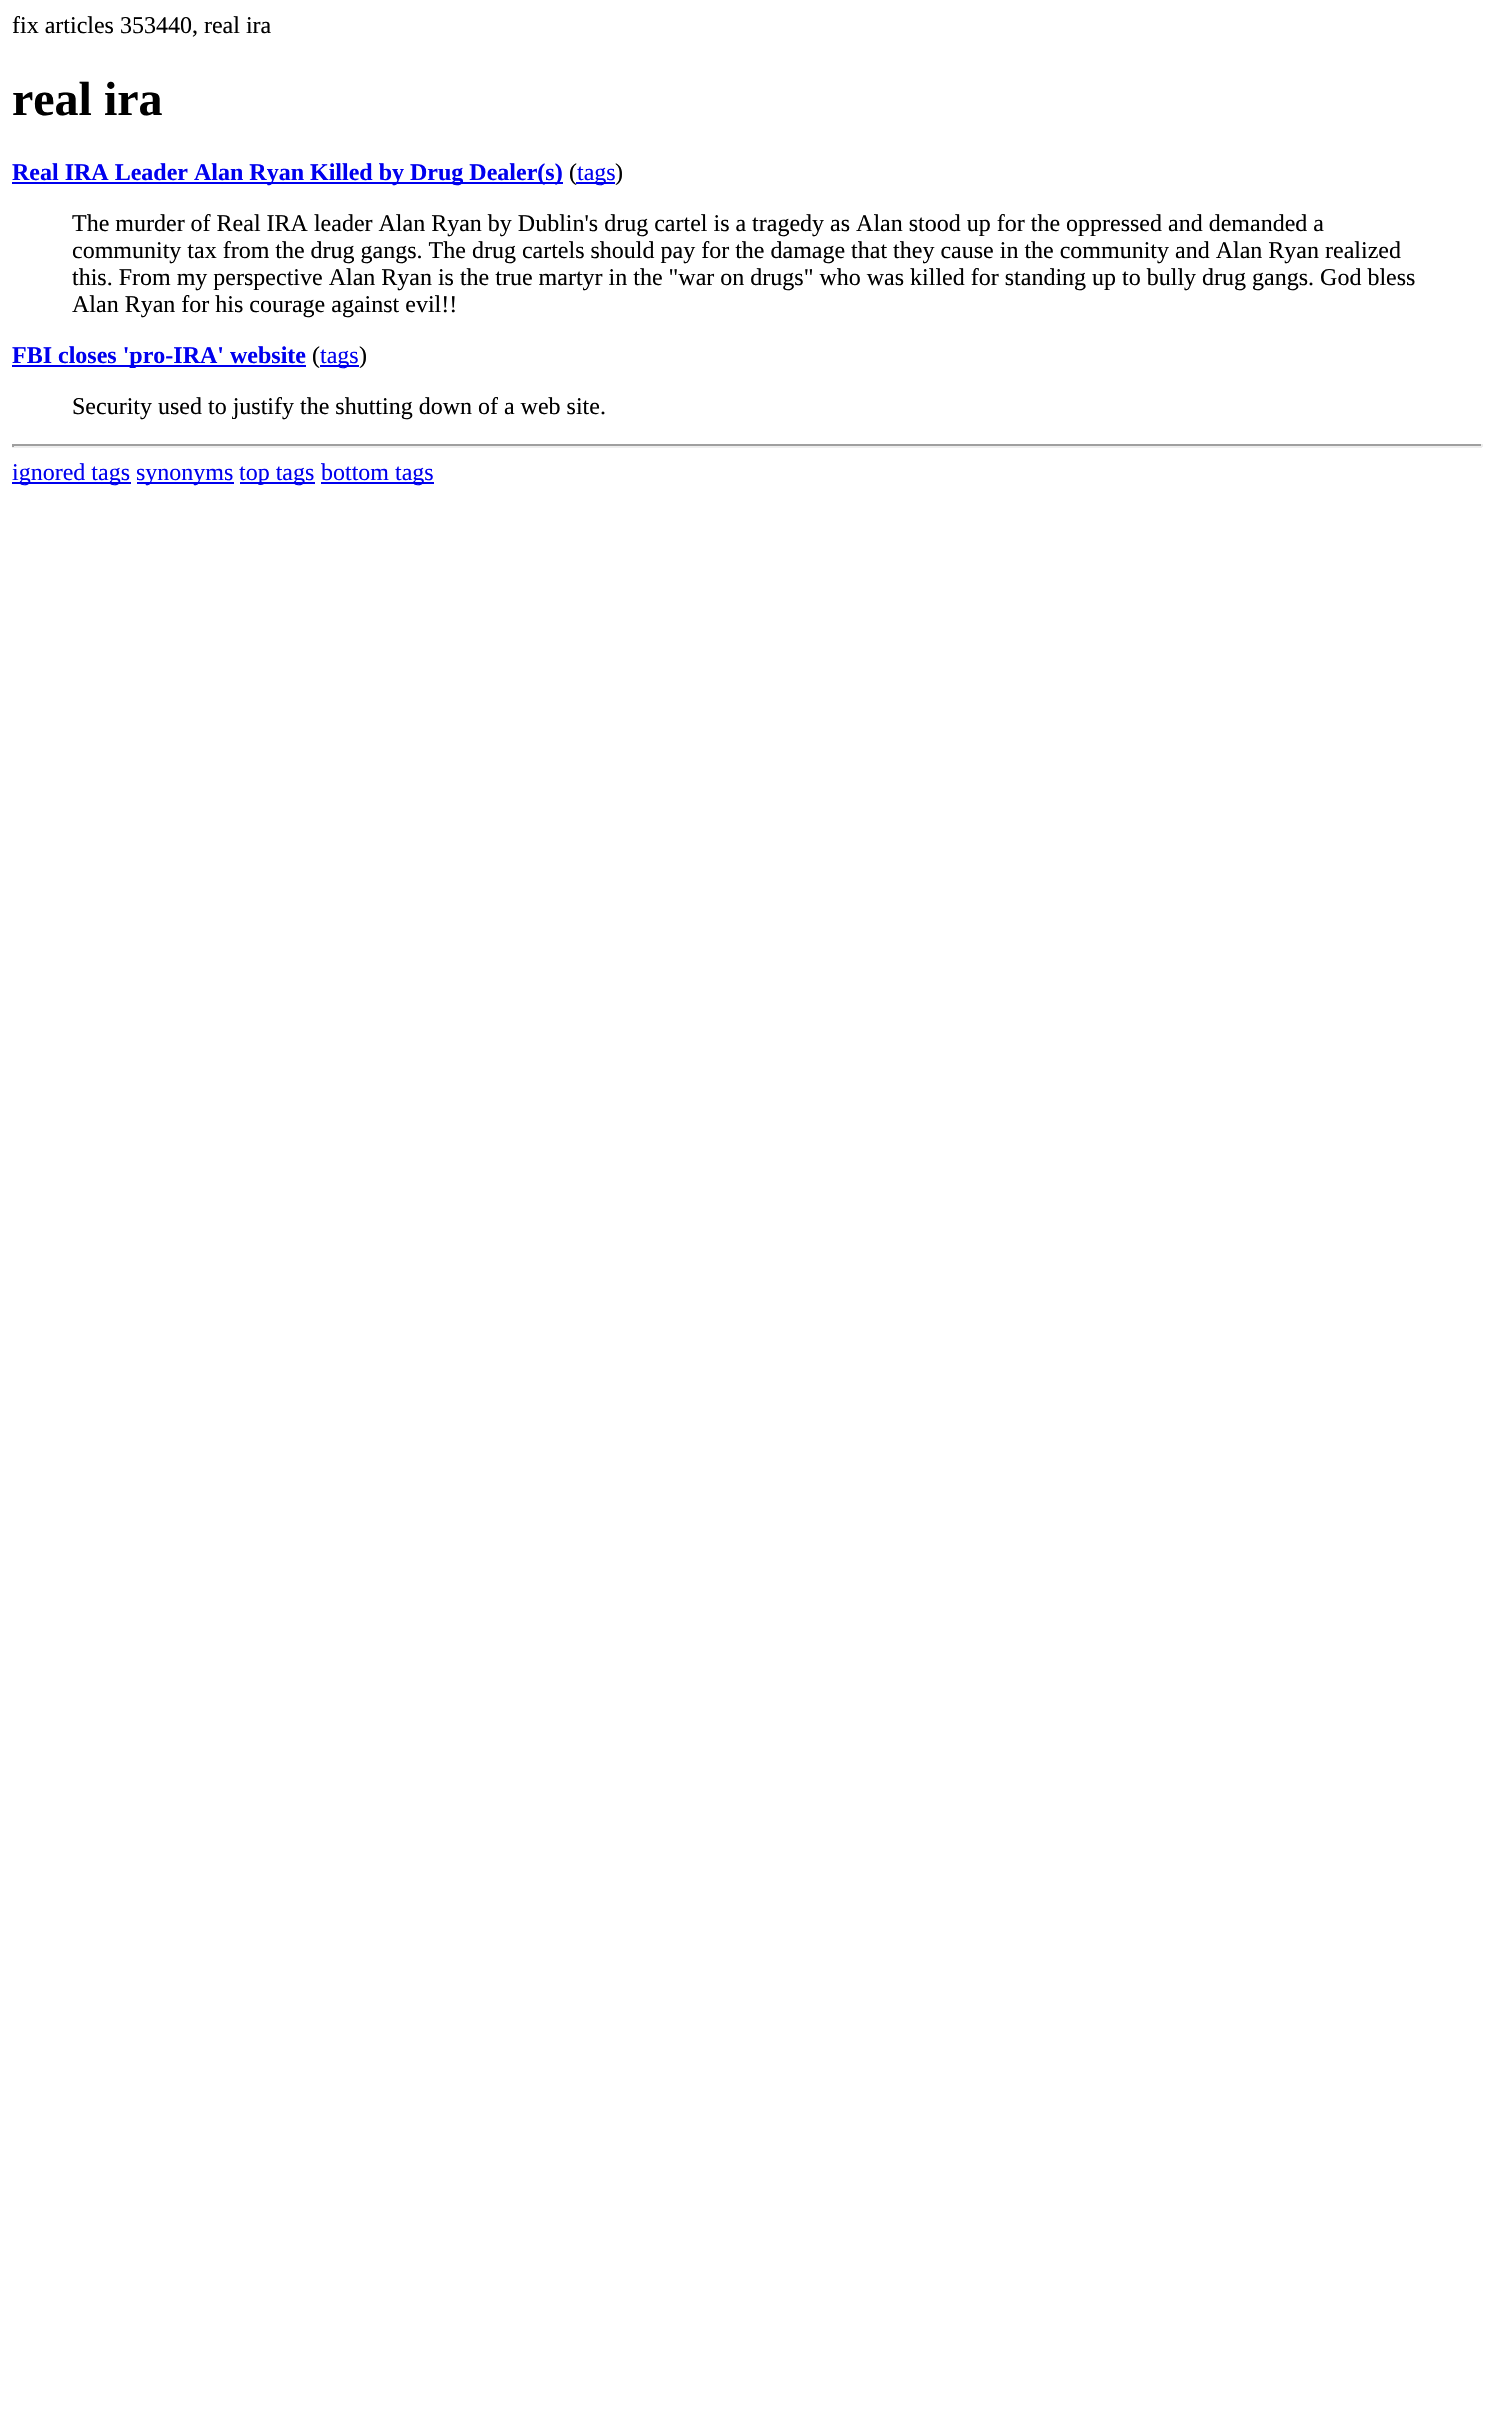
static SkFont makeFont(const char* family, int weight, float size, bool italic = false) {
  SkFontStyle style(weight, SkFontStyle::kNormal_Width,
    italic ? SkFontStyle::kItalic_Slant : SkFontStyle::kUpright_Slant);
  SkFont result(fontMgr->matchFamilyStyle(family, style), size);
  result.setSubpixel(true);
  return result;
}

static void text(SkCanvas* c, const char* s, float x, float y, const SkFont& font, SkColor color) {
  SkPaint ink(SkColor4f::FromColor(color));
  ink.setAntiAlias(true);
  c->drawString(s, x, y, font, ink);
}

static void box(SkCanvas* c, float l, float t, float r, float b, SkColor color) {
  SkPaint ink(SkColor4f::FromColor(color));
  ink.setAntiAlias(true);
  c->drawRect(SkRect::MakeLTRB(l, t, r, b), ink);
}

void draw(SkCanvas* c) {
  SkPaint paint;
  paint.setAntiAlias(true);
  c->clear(0xffffffff);
  SkFont face1 = makeFont("Liberation Serif", 400, 24);
  text(c, "fix articles 353440, real ira", 12, 33, face1, 0xff000000);
  SkFont face2 = makeFont("Liberation Serif", 700, 48);
  text(c, "real ira", 12, 115, face2, 0xff000000);
  box(c, 12, 182, 563, 184, 0xff0000ee);
  SkFont face3 = makeFont("Liberation Serif", 700, 24);
  text(c, "Real IRA Leader Alan Ryan Killed by Drug Dealer(s)", 12, 180, face3, 0xff0000ee);
  text(c, "(", 569, 180, face1, 0xff000000);
  box(c, 576, 182, 615, 184, 0xff0000ee);
  text(c, "tags", 577, 180, face1, 0xff0000ee);
  text(c, ")", 615, 180, face1, 0xff000000);
  text(c, "The murder of Real IRA leader Alan Ryan by Dublin's drug cartel is a tragedy as Alan stood up for the oppressed and demanded a", 72, 231, face1, 0xff000000);
  text(c, "community tax from the drug gangs. The drug cartels should pay for the damage that they cause in the community and Alan Ryan realized", 72, 258, face1, 0xff000000);
  text(c, "this. From my perspective Alan Ryan is the true martyr in the \"war on drugs\" who was killed for standing up to bully drug gangs. God bless", 72, 285, face1, 0xff000000);
  text(c, "Alan Ryan for his courage against evil!!", 72, 312, face1, 0xff000000);
  box(c, 12, 365, 306, 367, 0xff0000ee);
  text(c, "FBI closes 'pro-IRA' website", 12, 363, face3, 0xff0000ee);
  text(c, "(", 312, 363, face1, 0xff000000);
  box(c, 320, 365, 359, 367, 0xff0000ee);
  text(c, "tags", 320, 363, face1, 0xff0000ee);
  text(c, ")", 359, 363, face1, 0xff000000);
  text(c, "Security used to justify the shutting down of a web site.", 72, 414, face1, 0xff000000);
  box(c, 12, 444, 1482, 446, 0xff9f9f9f);
  box(c, 1481, 444, 1483, 447, 0xffeeeeee);
  box(c, 12, 446, 1482, 448, 0xffeeeeee);
  box(c, 12, 444, 14, 447, 0xff9f9f9f);
  box(c, 12, 482, 131, 484, 0xff0000ee);
  text(c, "ignored tags", 12, 480, face1, 0xff0000ee);
  box(c, 137, 482, 234, 484, 0xff0000ee);
  text(c, "synonyms", 136, 480, face1, 0xff0000ee);
  box(c, 240, 482, 315, 484, 0xff0000ee);
  text(c, "top tags", 239, 480, face1, 0xff0000ee);
  box(c, 321, 482, 434, 484, 0xff0000ee);
  text(c, "bottom tags", 321, 480, face1, 0xff0000ee);
}
